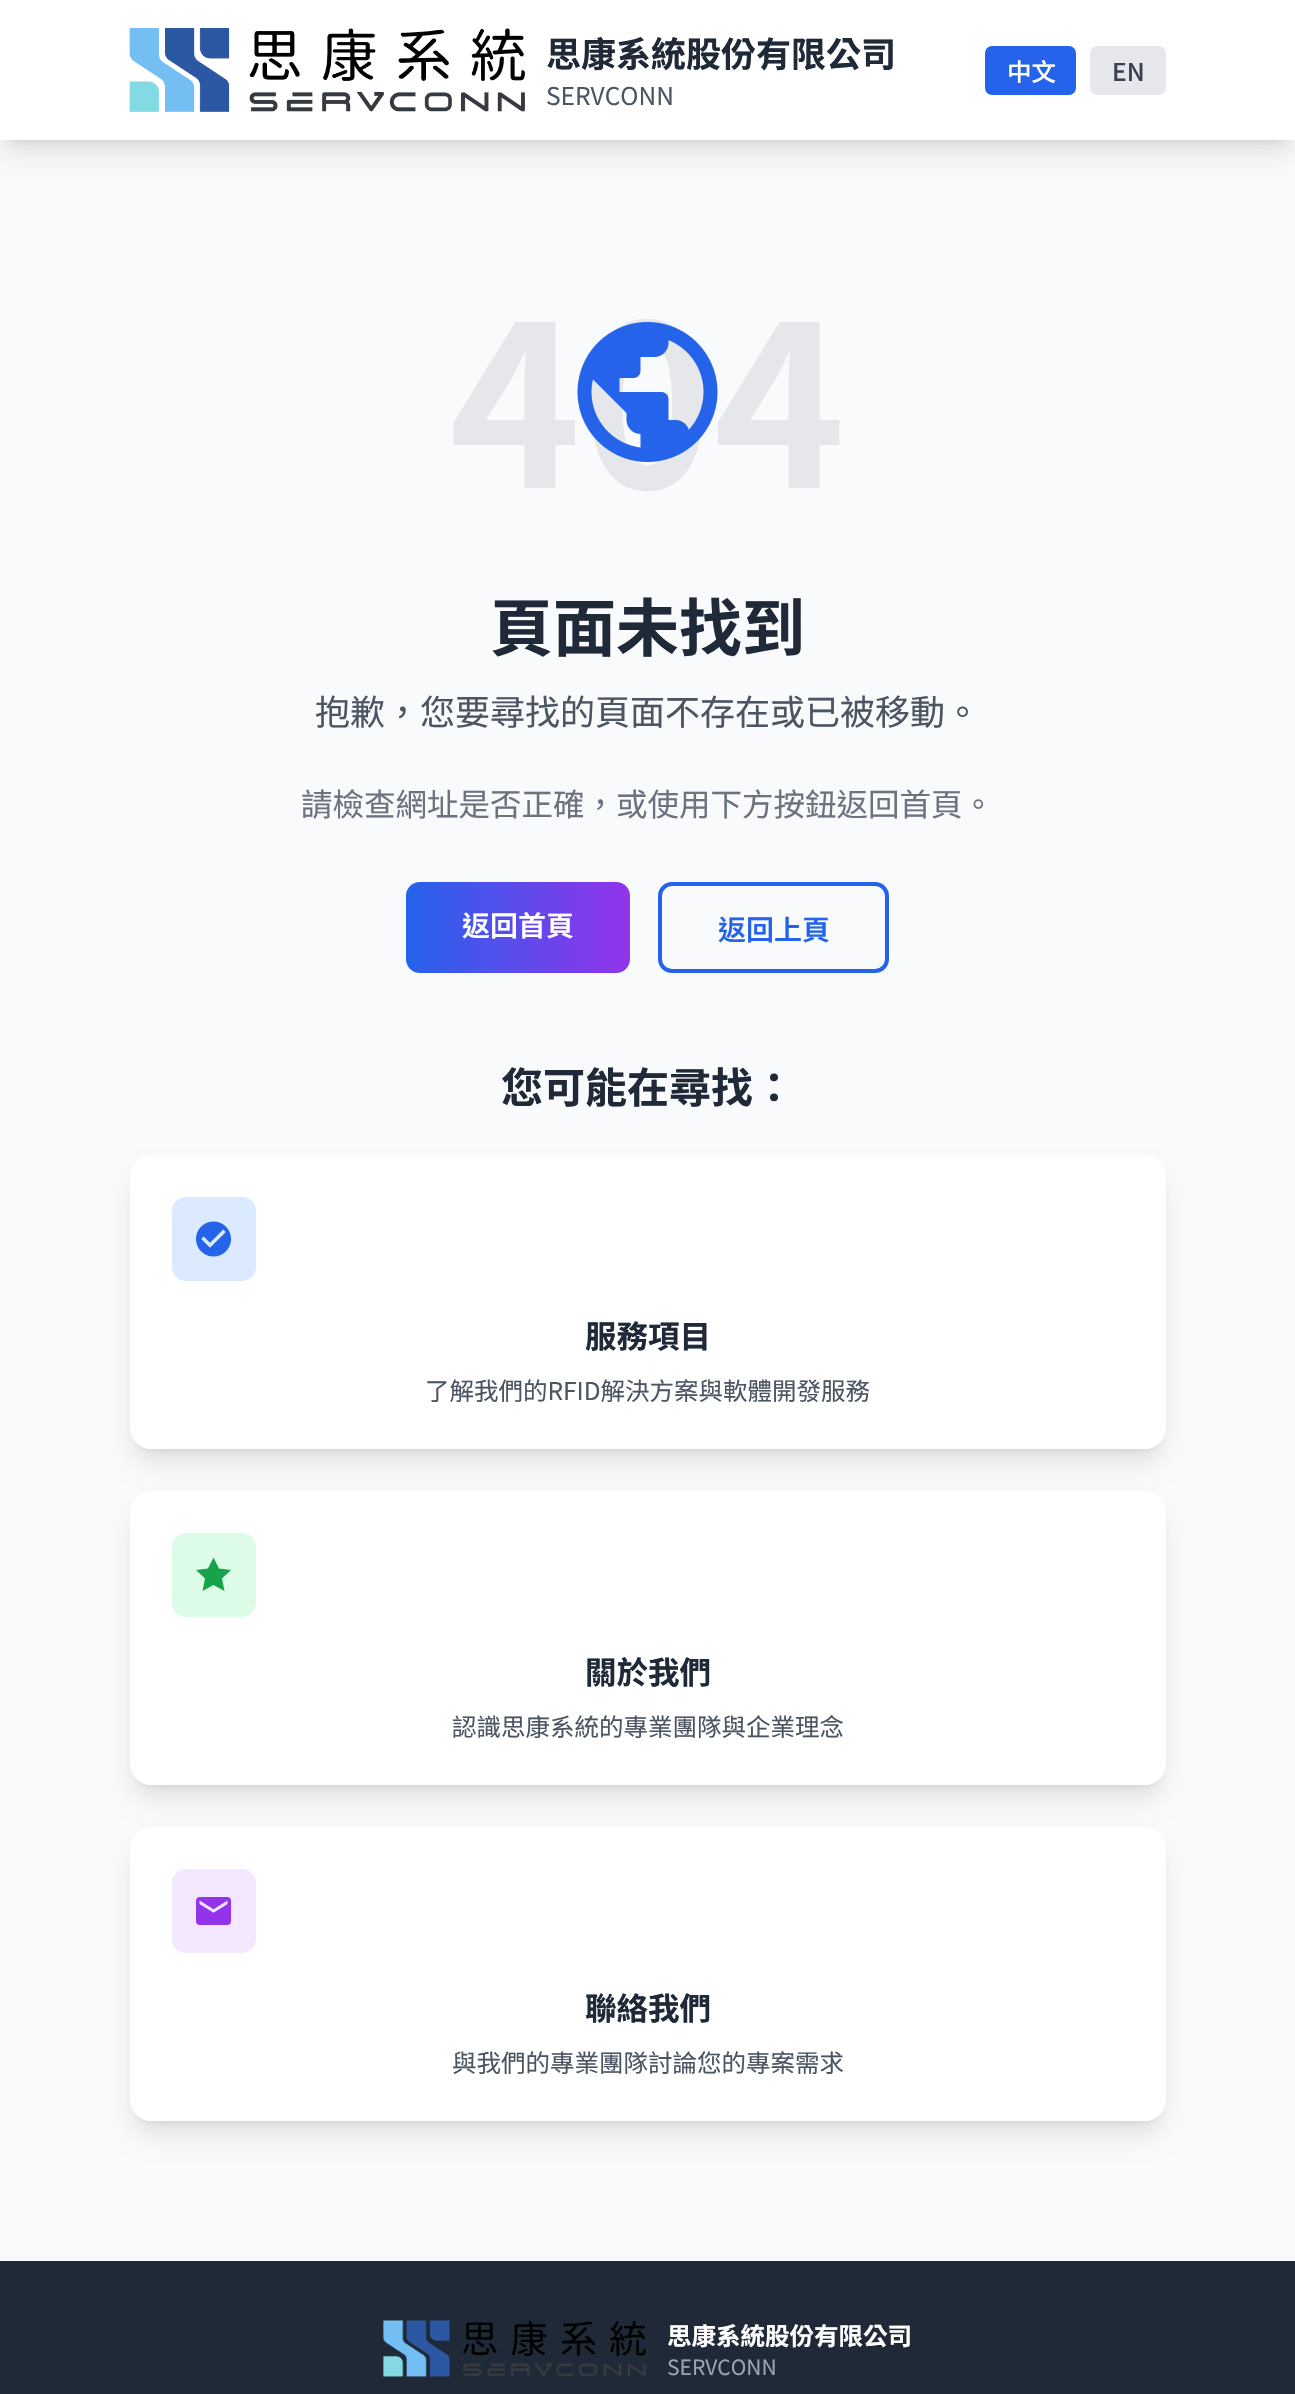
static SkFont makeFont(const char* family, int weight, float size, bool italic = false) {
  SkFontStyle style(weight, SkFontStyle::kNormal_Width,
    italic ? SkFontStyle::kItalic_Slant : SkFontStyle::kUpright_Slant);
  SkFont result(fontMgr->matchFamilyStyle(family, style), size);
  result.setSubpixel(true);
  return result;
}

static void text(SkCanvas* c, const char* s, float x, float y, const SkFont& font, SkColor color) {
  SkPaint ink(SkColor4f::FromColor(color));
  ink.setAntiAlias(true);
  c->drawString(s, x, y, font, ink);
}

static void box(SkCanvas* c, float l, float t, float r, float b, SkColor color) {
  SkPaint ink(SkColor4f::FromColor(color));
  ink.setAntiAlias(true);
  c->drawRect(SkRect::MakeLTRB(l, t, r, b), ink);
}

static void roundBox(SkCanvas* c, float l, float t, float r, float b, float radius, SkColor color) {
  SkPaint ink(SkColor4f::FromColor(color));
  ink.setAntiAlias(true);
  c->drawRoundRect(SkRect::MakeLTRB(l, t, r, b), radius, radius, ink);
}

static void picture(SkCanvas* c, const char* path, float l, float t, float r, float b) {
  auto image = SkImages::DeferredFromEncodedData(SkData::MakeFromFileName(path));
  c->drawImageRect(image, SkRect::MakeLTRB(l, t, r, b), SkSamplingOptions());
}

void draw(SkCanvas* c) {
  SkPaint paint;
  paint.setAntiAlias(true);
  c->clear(0xfff9fafb);
  paint.setColor(0x1a000000);
  paint.setMaskFilter(SkMaskFilter::MakeBlur(kNormal_SkBlurStyle, 5));
  c->drawRect(SkRect::MakeLTRB(7, 14, 1288, 140), paint);
  paint.setMaskFilter(nullptr);
  paint.setMaskFilter(SkMaskFilter::MakeBlur(kNormal_SkBlurStyle, 13));
  c->drawRect(SkRect::MakeLTRB(5, 23, 1290, 152), paint);
  paint.setMaskFilter(nullptr);
  box(c, 0, 0, 1295, 140, 0xffffffff);
  picture(c, "img_01.png", 129, 28, 525, 112);
  SkFont face1 = makeFont("Noto Sans TC", 700, 35);
  text(c, "思康系統股份有限公司", 546, 67, face1, 0xff1f2937);
  SkFont face2 = makeFont("Noto Sans TC", 400, 24.5f);
  text(c, "SERVCONN", 546, 105, face2, 0xff4b5563);
  roundBox(c, 985, 46, 1076, 95, 7, 0xff2563eb);
  SkFont face3 = makeFont("Noto Sans TC", 500, 24.5f);
  text(c, "中文", 1007, 81, face3, 0xffffffff);
  roundBox(c, 1090, 46, 1166, 95, 7, 0xffe5e7eb);
  text(c, "EN", 1112, 81, face3, 0xff374151);
  SkFont face4 = makeFont("Noto Sans TC", 700, 224);
  text(c, "404", 449, 488, face4, 0xffe5e7eb);
  picture(c, "img_02.png", 577, 322, 718, 462);
  SkFont face5 = makeFont("Noto Sans TC", 700, 63);
  text(c, "頁面未找到", 490, 651, face5, 0xff1f2937);
  SkFont face6 = makeFont("Noto Sans TC", 400, 35);
  text(c, "抱歉，您要尋找的頁面不存在或已被移動。", 315, 725, face6, 0xff4b5563);
  SkFont face7 = makeFont("Noto Sans TC", 400, 31.5f);
  text(c, "請檢查網址是否正確，或使用下方按鈕返回首頁。", 301, 816, face7, 0xff6b7280);
  {
    const SkColor colors[] = {0xff2563eb, 0xff9333ea};
    const float stops[] = {0, 1};
    const SkPoint ends[] = {{406, 928}, {630, 928}};
    paint.setShader(SkGradientShader::MakeLinear(ends, colors, stops, 2, SkTileMode::kClamp));
    paint.setAlpha(255);
  }
  c->drawRoundRect(SkRect::MakeLTRB(406, 882, 630, 973), 14, 14, paint);
  SkFont face8 = makeFont("Noto Sans TC", 600, 28);
  text(c, "返回首頁", 462, 936, face8, 0xffffffff);
  paint.setStyle(SkPaint::kStroke_Style);
  paint.setStrokeWidth(4);
  paint.setShader(nullptr);
  paint.setColor(0xff2563eb);
  c->drawRoundRect(SkRect::MakeLTRB(660, 884, 887, 971), 12, 12, paint);
  text(c, "返回上頁", 718, 940, face8, 0xff2563eb);
  SkFont face9 = makeFont("Noto Sans TC", 700, 42);
  text(c, "您可能在尋找：", 501, 1103, face9, 0xff1f2937);
  paint.setStyle(SkPaint::kFill_Style);
  paint.setColor(0x1a000000);
  paint.setMaskFilter(SkMaskFilter::MakeBlur(kNormal_SkBlurStyle, 5));
  c->drawRoundRect(SkRect::MakeLTRB(137, 1169, 1159, 1449), 14, 14, paint);
  paint.setMaskFilter(nullptr);
  paint.setMaskFilter(SkMaskFilter::MakeBlur(kNormal_SkBlurStyle, 13));
  c->drawRoundRect(SkRect::MakeLTRB(135, 1178, 1160, 1461), 16, 16, paint);
  paint.setMaskFilter(nullptr);
  roundBox(c, 130, 1155, 1166, 1449, 21, 0xffffffff);
  roundBox(c, 172, 1197, 256, 1281, 14, 0xffdbeafe);
  picture(c, "img_03.png", 196, 1221, 231, 1257);
  SkFont face10 = makeFont("Noto Sans TC", 700, 31.5f);
  text(c, "服務項目", 585, 1348, face10, 0xff1f2937);
  text(c, "了解我們的RFID解決方案與軟體開發服務", 425, 1400, face2, 0xff4b5563);
  paint.setMaskFilter(SkMaskFilter::MakeBlur(kNormal_SkBlurStyle, 5));
  c->drawRoundRect(SkRect::MakeLTRB(137, 1505, 1159, 1785), 14, 14, paint);
  paint.setMaskFilter(nullptr);
  paint.setMaskFilter(SkMaskFilter::MakeBlur(kNormal_SkBlurStyle, 13));
  c->drawRoundRect(SkRect::MakeLTRB(135, 1514, 1160, 1797), 16, 16, paint);
  paint.setMaskFilter(nullptr);
  roundBox(c, 130, 1491, 1166, 1785, 21, 0xffffffff);
  roundBox(c, 172, 1533, 256, 1617, 14, 0xffdcfce7);
  paint.setColor(0xff16a34a);
  c->drawPath(SkPathBuilder().moveTo(213.5f, 1557.5f).lineTo(219, 1568.5f).lineTo(231, 1570).lineTo(222, 1578.5f).lineTo(224.5f, 1591).lineTo(213.5f, 1585).lineTo(202.5f, 1591).lineTo(205, 1578.5f).lineTo(196, 1570).lineTo(208, 1568.5f).close().detach(), paint);
  text(c, "關於我們", 585, 1684, face10, 0xff1f2937);
  text(c, "認識思康系統的專業團隊與企業理念", 452, 1736, face2, 0xff4b5563);
  paint.setColor(0x1a000000);
  paint.setMaskFilter(SkMaskFilter::MakeBlur(kNormal_SkBlurStyle, 5));
  c->drawRoundRect(SkRect::MakeLTRB(137, 1841, 1159, 2121), 14, 14, paint);
  paint.setMaskFilter(nullptr);
  paint.setMaskFilter(SkMaskFilter::MakeBlur(kNormal_SkBlurStyle, 13));
  c->drawRoundRect(SkRect::MakeLTRB(135, 1850, 1160, 2133), 16, 16, paint);
  paint.setMaskFilter(nullptr);
  roundBox(c, 130, 1827, 1166, 2121, 21, 0xffffffff);
  roundBox(c, 172, 1869, 256, 1953, 14, 0xfff3e8ff);
  picture(c, "img_04.png", 196, 1897, 231, 1925);
  text(c, "聯絡我們", 585, 2020, face10, 0xff1f2937);
  text(c, "與我們的專業團隊討論您的專案需求", 452, 2072, face2, 0xff4b5563);
  box(c, 0, 2261, 1295, 2394, 0xff1f2937);
  picture(c, "img_05.png", 383, 2320, 646, 2377);
  SkFont face11 = makeFont("Noto Sans TC", 700, 24.5f);
  text(c, "思康系統股份有限公司", 667, 2345, face11, 0xffffffff);
  SkFont face12 = makeFont("Noto Sans TC", 400, 21);
  text(c, "SERVCONN", 667, 2375, face12, 0xff9ca3af);
}
